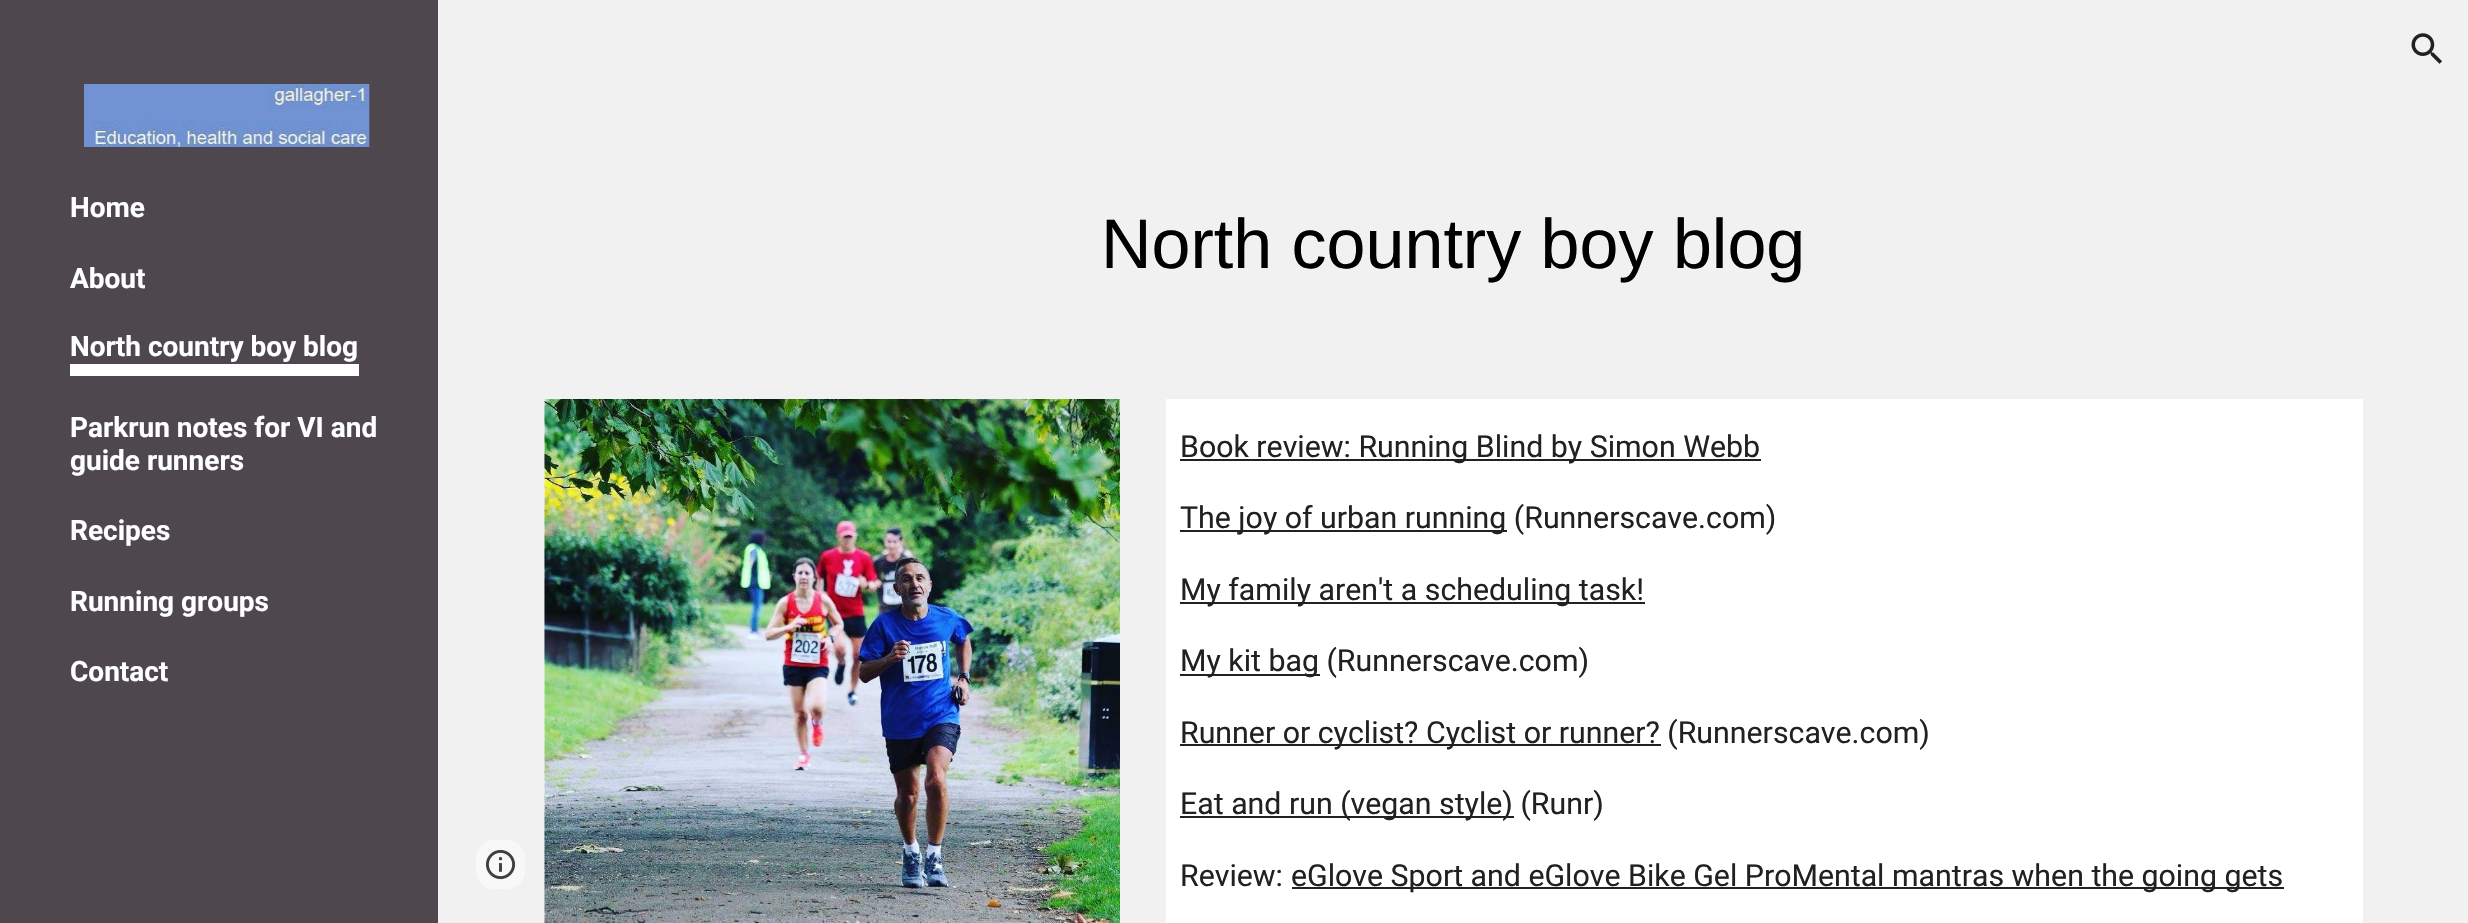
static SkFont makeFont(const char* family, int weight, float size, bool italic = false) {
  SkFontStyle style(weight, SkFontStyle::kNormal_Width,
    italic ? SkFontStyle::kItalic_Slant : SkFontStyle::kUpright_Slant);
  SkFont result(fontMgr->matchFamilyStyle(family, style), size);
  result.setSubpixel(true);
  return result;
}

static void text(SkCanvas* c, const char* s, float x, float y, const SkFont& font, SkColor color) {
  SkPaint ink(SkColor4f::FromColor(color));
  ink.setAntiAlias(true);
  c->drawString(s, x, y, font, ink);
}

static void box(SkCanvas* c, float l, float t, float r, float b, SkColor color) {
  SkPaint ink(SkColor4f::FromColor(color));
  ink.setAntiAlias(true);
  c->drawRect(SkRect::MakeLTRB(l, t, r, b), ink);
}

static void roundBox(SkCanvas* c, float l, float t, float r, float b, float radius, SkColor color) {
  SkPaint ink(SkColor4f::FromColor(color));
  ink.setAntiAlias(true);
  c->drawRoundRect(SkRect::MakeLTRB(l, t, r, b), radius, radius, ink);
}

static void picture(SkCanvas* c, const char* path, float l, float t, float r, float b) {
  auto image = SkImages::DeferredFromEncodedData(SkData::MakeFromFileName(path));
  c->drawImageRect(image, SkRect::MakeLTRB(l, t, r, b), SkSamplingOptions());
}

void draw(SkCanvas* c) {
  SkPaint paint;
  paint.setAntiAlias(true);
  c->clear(0xfff1f1f1);
  picture(c, "img_01.png", 2411, 33, 2442, 64);
  box(c, 0, 0, 438, 923, 0xff4f474e);
  picture(c, "img_02.png", 84, 84, 370, 147);
  SkFont face1 = makeFont("Roboto", 700, 28);
  text(c, "Home", 70, 217, face1, 0xffffffff);
  text(c, "About", 70, 288, face1, 0xffffffff);
  box(c, 70, 364, 359, 376, 0xffffffff);
  text(c, "North country boy blog", 70, 356, face1, 0xffffffff);
  text(c, "Parkrun notes for VI and", 70, 437, face1, 0xffffffff);
  text(c, "guide runners", 70, 470, face1, 0xffffffff);
  text(c, "Recipes", 70, 540, face1, 0xffffffff);
  text(c, "Running groups", 70, 611, face1, 0xffffffff);
  text(c, "Contact", 70, 681, face1, 0xffffffff);
  roundBox(c, 476, 840, 525, 889, 18, 0xfff8f8f8);
  picture(c, "img_03.png", 485, 849, 516, 880);
  SkFont face2 = makeFont("Liberation Sans", 400, 70);
  text(c, "North country boy blog", 1101, 268, face2, 0xff000000);
  box(c, 544, 399, 545, 923, 0xffffffff);
  picture(c, "img_04.png", 544, 399, 1120, 923);
  box(c, 1166, 399, 2363, 923, 0xffffffff);
  box(c, 1180, 459, 1761, 461, 0xff212121);
  SkFont face3 = makeFont("Roboto", 400, 30.3f);
  text(c, "Book review: Running Blind by Simon Webb", 1180, 457, face3, 0xff212121);
  box(c, 1180, 530, 1507, 532, 0xff212121);
  text(c, "The joy of urban running (Runnerscave.com)", 1180, 528, face3, 0xff212121);
  box(c, 1180, 602, 1645, 604, 0xff212121);
  text(c, "My family aren't a scheduling task!", 1180, 600, face3, 0xff212121);
  box(c, 1180, 674, 1320, 676, 0xff212121);
  text(c, "My kit bag (Runnerscave.com)", 1180, 671, face3, 0xff212121);
  box(c, 1180, 744, 1661, 746, 0xff212121);
  text(c, "Runner or cyclist? Cyclist or runner? (Runnerscave.com)", 1180, 743, face3, 0xff212121);
  box(c, 1180, 816, 1514, 818, 0xff212121);
  text(c, "Eat and run (vegan style) (Runr)", 1180, 814, face3, 0xff212121);
  text(c, "Review:", 1180, 886, face3, 0xff212121);
  box(c, 1292, 887, 2284, 889, 0xff212121);
  text(c, "eGlove Sport and eGlove Bike Gel ProMental mantras when the going gets", 1291, 886, face3, 0xff212121);
}
